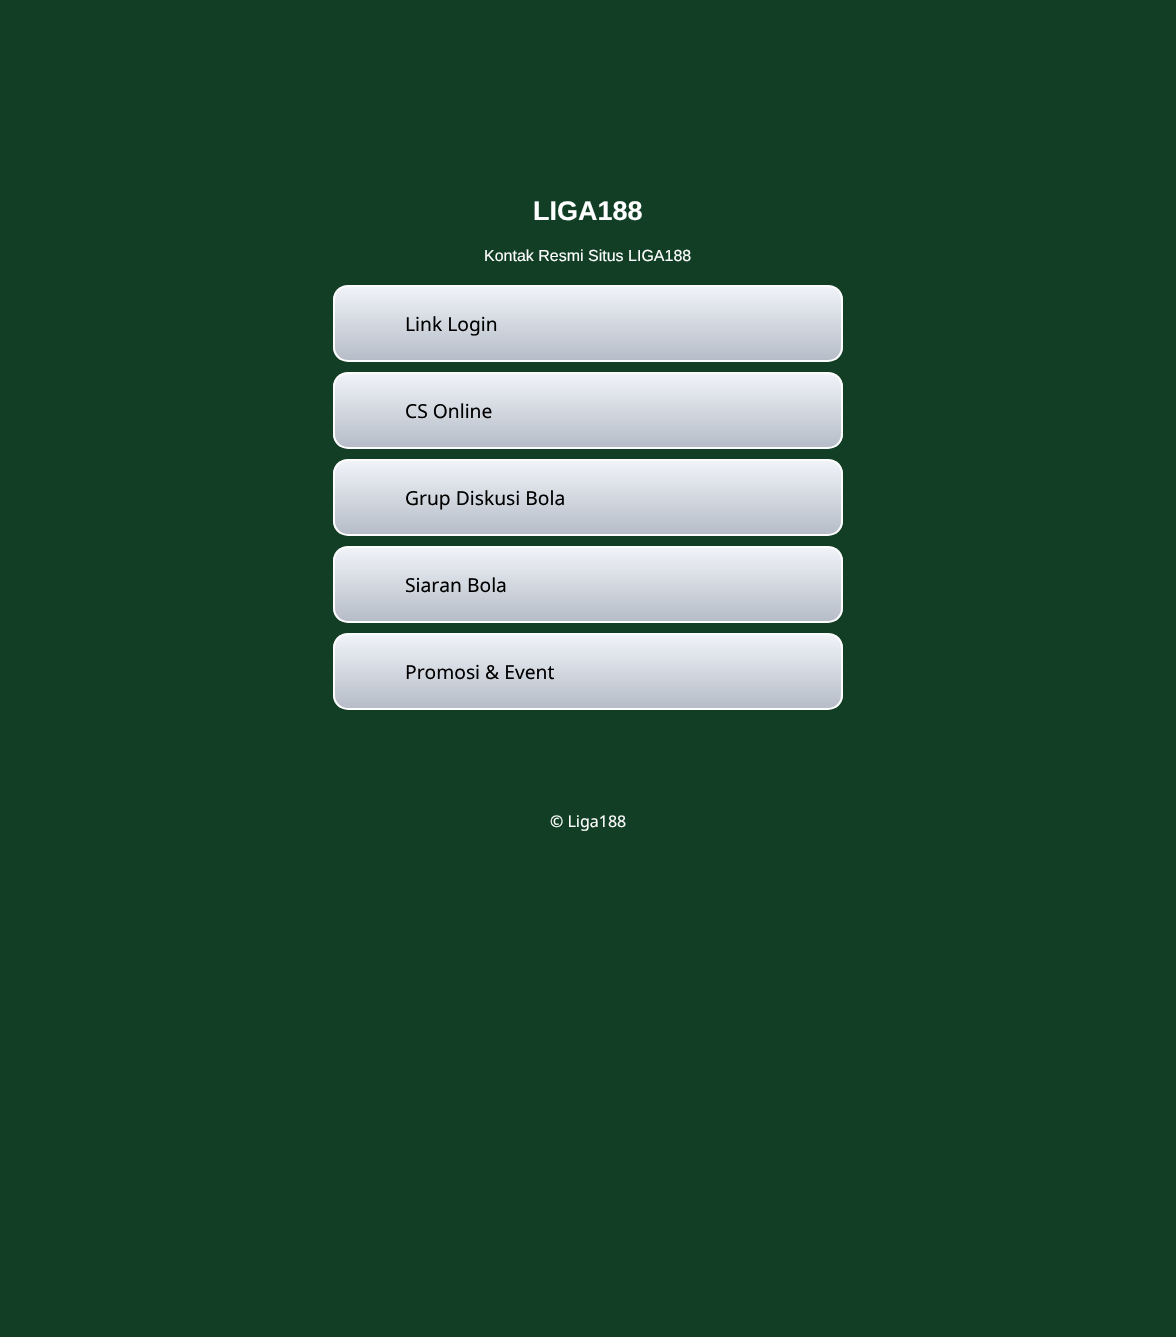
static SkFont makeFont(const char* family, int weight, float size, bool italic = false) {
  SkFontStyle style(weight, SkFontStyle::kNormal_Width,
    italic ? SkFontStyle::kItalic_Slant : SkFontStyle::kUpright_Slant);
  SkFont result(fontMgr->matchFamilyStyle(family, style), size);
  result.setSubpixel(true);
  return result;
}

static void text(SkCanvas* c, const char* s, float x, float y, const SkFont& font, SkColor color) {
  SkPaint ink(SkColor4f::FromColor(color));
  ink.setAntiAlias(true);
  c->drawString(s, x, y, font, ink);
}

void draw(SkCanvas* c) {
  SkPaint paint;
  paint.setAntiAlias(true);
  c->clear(0xff123e25);
  SkFont face1 = makeFont("Liberation Sans", 700, 27);
  text(c, "LIGA188", 533, 220, face1, 0xffffffff);
  SkFont face2 = makeFont("Liberation Sans", 400, 16);
  text(c, "Kontak Resmi Situs LIGA188", 484, 261, face2, 0xffffffff);
  c->save();
  c->clipPath(SkPathBuilder().moveTo(348, 285).lineTo(828, 285).cubicTo(836.5f, 285, 843, 291.5f, 843, 300).lineTo(843, 347).cubicTo(843, 355.5f, 836.5f, 362, 828, 362).lineTo(348, 362).cubicTo(339.5f, 362, 333, 355.5f, 333, 347).lineTo(333, 300).cubicTo(333, 291.5f, 339.5f, 285, 348, 285).close().detach(), true);
  {
    const SkColor colors[] = {0xffb6bdc8, 0xfff0f3f8};
    const float stops[] = {0, 1};
    const SkPoint ends[] = {{588, 360}, {588, 287}};
    paint.setShader(SkGradientShader::MakeLinear(ends, colors, stops, 2, SkTileMode::kClamp));
    paint.setAlpha(255);
  }
  c->drawRect(SkRect::MakeLTRB(333, 287, 843, 360), paint);
  c->restore();
  paint.setStyle(SkPaint::kStroke_Style);
  paint.setStrokeWidth(2);
  paint.setShader(nullptr);
  paint.setColor(0xfffcfcfc);
  c->drawRoundRect(SkRect::MakeLTRB(334, 286, 842, 361), 14, 14, paint);
  SkFont face3 = makeFont("Noto Sans", 400, 19.25f);
  text(c, "Link Login", 405, 331, face3, 0xff000000);
  c->save();
  c->clipPath(SkPathBuilder().moveTo(348, 372).lineTo(828, 372).cubicTo(836.5f, 372, 843, 378.5f, 843, 387).lineTo(843, 434).cubicTo(843, 442.5f, 836.5f, 449, 828, 449).lineTo(348, 449).cubicTo(339.5f, 449, 333, 442.5f, 333, 434).lineTo(333, 387).cubicTo(333, 378.5f, 339.5f, 372, 348, 372).close().detach(), true);
  paint.setStyle(SkPaint::kFill_Style);
  {
    const SkColor colors[] = {0xffb6bdc8, 0xfff0f3f8};
    const float stops[] = {0, 1};
    const SkPoint ends[] = {{588, 447}, {588, 374}};
    paint.setShader(SkGradientShader::MakeLinear(ends, colors, stops, 2, SkTileMode::kClamp));
    paint.setAlpha(255);
  }
  c->drawRect(SkRect::MakeLTRB(333, 374, 843, 447), paint);
  c->restore();
  paint.setStyle(SkPaint::kStroke_Style);
  paint.setShader(nullptr);
  paint.setColor(0xfffcfcfc);
  c->drawRoundRect(SkRect::MakeLTRB(334, 373, 842, 448), 14, 14, paint);
  text(c, "CS Online", 405, 418, face3, 0xff000000);
  c->save();
  c->clipPath(SkPathBuilder().moveTo(348, 459).lineTo(828, 459).cubicTo(836.5f, 459, 843, 465.5f, 843, 474).lineTo(843, 521).cubicTo(843, 529.5f, 836.5f, 536, 828, 536).lineTo(348, 536).cubicTo(339.5f, 536, 333, 529.5f, 333, 521).lineTo(333, 474).cubicTo(333, 465.5f, 339.5f, 459, 348, 459).close().detach(), true);
  paint.setStyle(SkPaint::kFill_Style);
  {
    const SkColor colors[] = {0xffb6bdc8, 0xfff0f3f8};
    const float stops[] = {0, 1};
    const SkPoint ends[] = {{588, 534}, {588, 461}};
    paint.setShader(SkGradientShader::MakeLinear(ends, colors, stops, 2, SkTileMode::kClamp));
    paint.setAlpha(255);
  }
  c->drawRect(SkRect::MakeLTRB(333, 461, 843, 534), paint);
  c->restore();
  paint.setStyle(SkPaint::kStroke_Style);
  paint.setShader(nullptr);
  paint.setColor(0xfffcfcfc);
  c->drawRoundRect(SkRect::MakeLTRB(334, 460, 842, 535), 14, 14, paint);
  text(c, "Grup Diskusi Bola", 405, 505, face3, 0xff000000);
  c->save();
  c->clipPath(SkPathBuilder().moveTo(348, 546).lineTo(828, 546).cubicTo(836.5f, 546, 843, 552.5f, 843, 561).lineTo(843, 608).cubicTo(843, 616.5f, 836.5f, 623, 828, 623).lineTo(348, 623).cubicTo(339.5f, 623, 333, 616.5f, 333, 608).lineTo(333, 561).cubicTo(333, 552.5f, 339.5f, 546, 348, 546).close().detach(), true);
  paint.setStyle(SkPaint::kFill_Style);
  {
    const SkColor colors[] = {0xffb6bdc8, 0xfff0f3f8};
    const float stops[] = {0, 1};
    const SkPoint ends[] = {{588, 621}, {588, 548}};
    paint.setShader(SkGradientShader::MakeLinear(ends, colors, stops, 2, SkTileMode::kClamp));
    paint.setAlpha(255);
  }
  c->drawRect(SkRect::MakeLTRB(333, 548, 843, 621), paint);
  c->restore();
  paint.setStyle(SkPaint::kStroke_Style);
  paint.setShader(nullptr);
  paint.setColor(0xfffcfcfc);
  c->drawRoundRect(SkRect::MakeLTRB(334, 547, 842, 622), 14, 14, paint);
  text(c, "Siaran Bola", 405, 592, face3, 0xff000000);
  c->save();
  c->clipPath(SkPathBuilder().moveTo(348, 633).lineTo(828, 633).cubicTo(836.5f, 633, 843, 639.5f, 843, 648).lineTo(843, 695).cubicTo(843, 703.5f, 836.5f, 710, 828, 710).lineTo(348, 710).cubicTo(339.5f, 710, 333, 703.5f, 333, 695).lineTo(333, 648).cubicTo(333, 639.5f, 339.5f, 633, 348, 633).close().detach(), true);
  paint.setStyle(SkPaint::kFill_Style);
  {
    const SkColor colors[] = {0xffb6bdc8, 0xfff0f3f8};
    const float stops[] = {0, 1};
    const SkPoint ends[] = {{588, 708}, {588, 635}};
    paint.setShader(SkGradientShader::MakeLinear(ends, colors, stops, 2, SkTileMode::kClamp));
    paint.setAlpha(255);
  }
  c->drawRect(SkRect::MakeLTRB(333, 635, 843, 708), paint);
  c->restore();
  paint.setStyle(SkPaint::kStroke_Style);
  paint.setShader(nullptr);
  paint.setColor(0xfffcfcfc);
  c->drawRoundRect(SkRect::MakeLTRB(334, 634, 842, 709), 14, 14, paint);
  text(c, "Promosi & Event", 405, 679, face3, 0xff000000);
  SkFont face4 = makeFont("Noto Sans", 400, 16);
  text(c, "© Liga188", 550, 827, face4, 0xffffffff);
}
